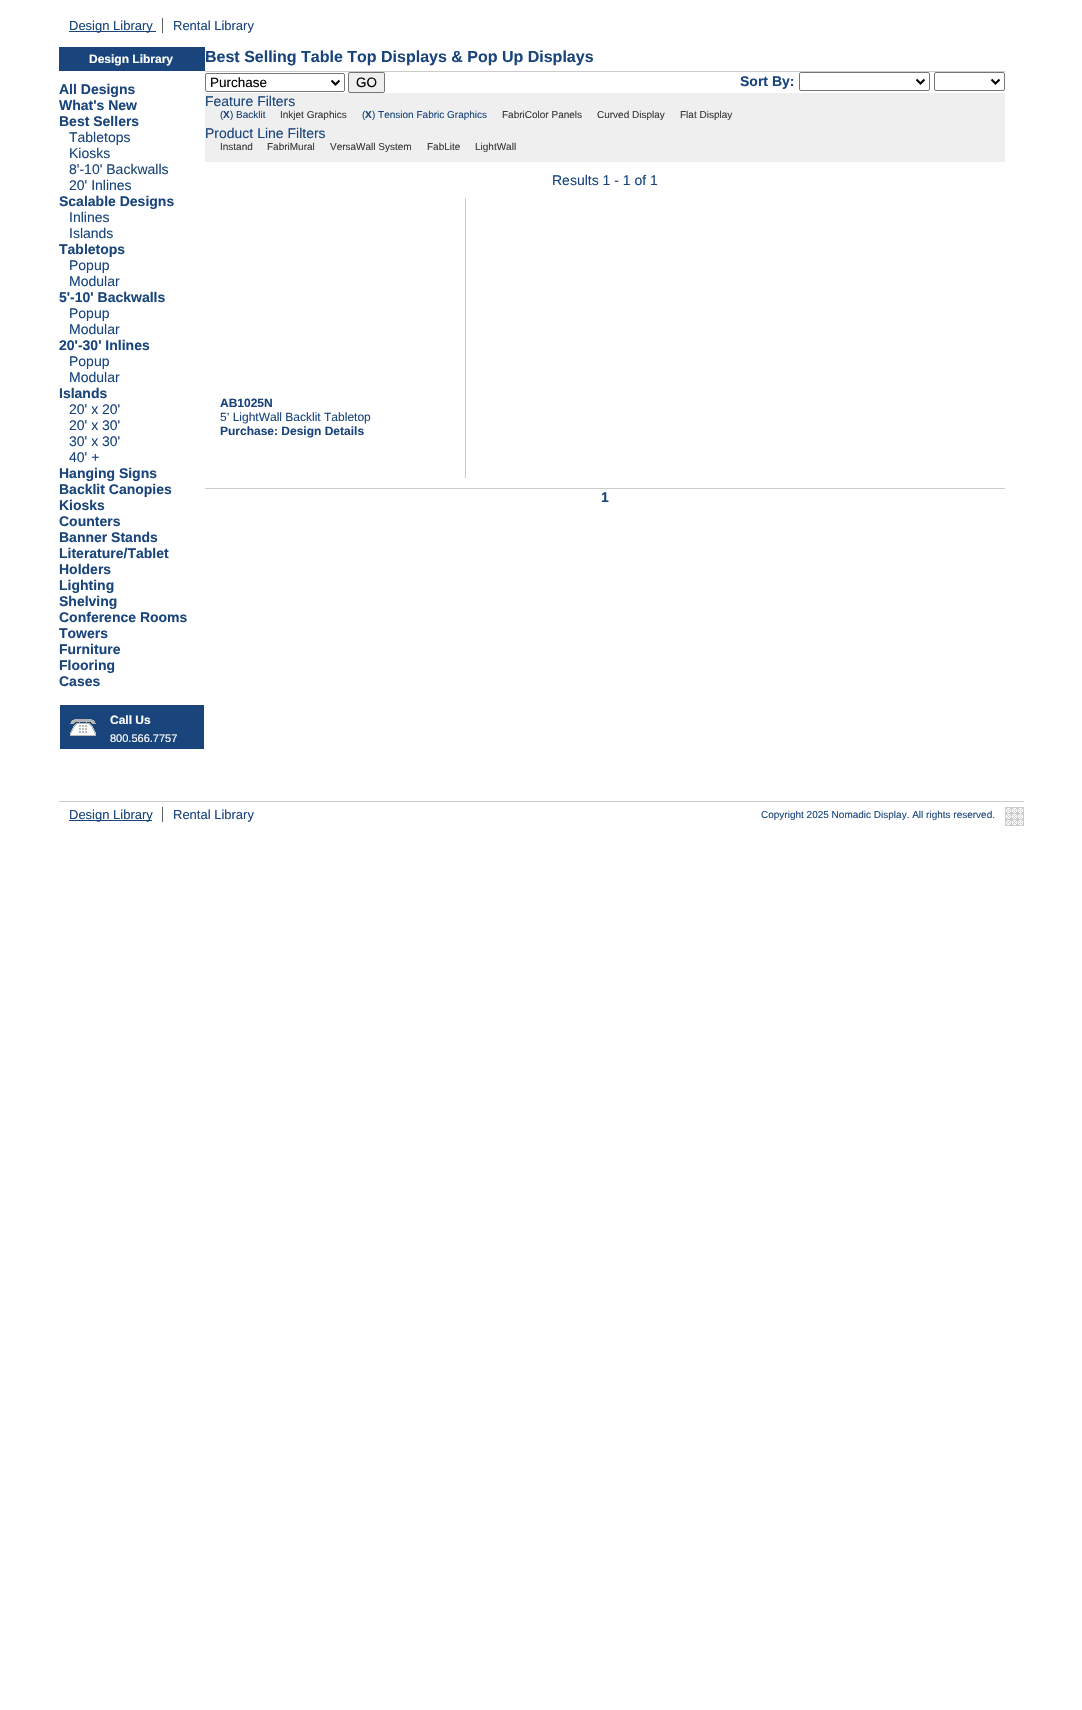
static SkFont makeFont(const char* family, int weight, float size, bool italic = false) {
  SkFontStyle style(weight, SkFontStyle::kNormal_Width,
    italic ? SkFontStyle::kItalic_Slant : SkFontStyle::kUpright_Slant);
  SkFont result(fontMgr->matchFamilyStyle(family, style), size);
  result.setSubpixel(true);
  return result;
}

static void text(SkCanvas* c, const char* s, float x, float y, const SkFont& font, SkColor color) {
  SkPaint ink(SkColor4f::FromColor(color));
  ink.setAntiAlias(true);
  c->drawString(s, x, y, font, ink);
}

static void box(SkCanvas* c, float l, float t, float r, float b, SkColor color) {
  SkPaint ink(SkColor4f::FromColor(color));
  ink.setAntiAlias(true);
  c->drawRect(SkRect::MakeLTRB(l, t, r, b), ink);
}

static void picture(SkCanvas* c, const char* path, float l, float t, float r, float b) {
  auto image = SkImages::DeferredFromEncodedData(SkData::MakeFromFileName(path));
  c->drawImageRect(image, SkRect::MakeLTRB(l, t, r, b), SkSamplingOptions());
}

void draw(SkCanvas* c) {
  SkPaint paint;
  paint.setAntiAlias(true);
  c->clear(0xffffffff);
  box(c, 69, 31, 156, 32, 0xff19457c);
  SkFont face1 = makeFont("Liberation Sans", 400, 13);
  text(c, "Design Library", 69, 30, face1, 0xff19457c);
  text(c, "Rental Library", 173, 30, face1, 0xff19457c);
  box(c, 162, 18, 163, 33, 0xff5e5e5e);
  box(c, 59, 47, 205, 71, 0xff19457c);
  SkFont face2 = makeFont("Liberation Sans", 700, 12);
  text(c, "Design Library", 89, 63, face2, 0xffffffff);
  SkFont face3 = makeFont("Liberation Sans", 700, 14);
  text(c, "All Designs", 59, 94, face3, 0xff19457c);
  text(c, "What's New", 59, 110, face3, 0xff19457c);
  text(c, "Best Sellers", 59, 126, face3, 0xff19457c);
  SkFont face4 = makeFont("Liberation Sans", 400, 14);
  text(c, "Tabletops", 69, 142, face4, 0xff19457c);
  text(c, "Kiosks", 69, 158, face4, 0xff19457c);
  text(c, "8'-10' Backwalls", 69, 174, face4, 0xff19457c);
  text(c, "20' Inlines", 69, 190, face4, 0xff19457c);
  text(c, "Scalable Designs", 59, 206, face3, 0xff19457c);
  text(c, "Inlines", 69, 222, face4, 0xff19457c);
  text(c, "Islands", 69, 238, face4, 0xff19457c);
  text(c, "Tabletops", 59, 254, face3, 0xff19457c);
  text(c, "Popup", 69, 270, face4, 0xff19457c);
  text(c, "Modular", 69, 286, face4, 0xff19457c);
  text(c, "5'-10' Backwalls", 59, 302, face3, 0xff19457c);
  text(c, "Popup", 69, 318, face4, 0xff19457c);
  text(c, "Modular", 69, 334, face4, 0xff19457c);
  text(c, "20'-30' Inlines", 59, 350, face3, 0xff19457c);
  text(c, "Popup", 69, 366, face4, 0xff19457c);
  text(c, "Modular", 69, 382, face4, 0xff19457c);
  text(c, "Islands", 59, 398, face3, 0xff19457c);
  text(c, "20' x 20'", 69, 414, face4, 0xff19457c);
  text(c, "20' x 30'", 69, 430, face4, 0xff19457c);
  text(c, "30' x 30'", 69, 446, face4, 0xff19457c);
  text(c, "40' +", 69, 462, face4, 0xff19457c);
  text(c, "Hanging Signs", 59, 478, face3, 0xff19457c);
  text(c, "Backlit Canopies", 59, 494, face3, 0xff19457c);
  text(c, "Kiosks", 59, 510, face3, 0xff19457c);
  text(c, "Counters", 59, 526, face3, 0xff19457c);
  text(c, "Banner Stands", 59, 542, face3, 0xff19457c);
  text(c, "Literature/Tablet", 59, 558, face3, 0xff19457c);
  text(c, "Holders", 59, 574, face3, 0xff19457c);
  text(c, "Lighting", 59, 590, face3, 0xff19457c);
  text(c, "Shelving", 59, 606, face3, 0xff19457c);
  text(c, "Conference Rooms", 59, 622, face3, 0xff19457c);
  text(c, "Towers", 59, 638, face3, 0xff19457c);
  text(c, "Furniture", 59, 654, face3, 0xff19457c);
  text(c, "Flooring", 59, 670, face3, 0xff19457c);
  text(c, "Cases", 59, 686, face3, 0xff19457c);
  box(c, 60, 705, 204, 749, 0xff19457c);
  picture(c, "img_01.png", 70, 719, 96, 736);
  text(c, "Call Us", 110, 724, face2, 0xffffffff);
  SkFont face5 = makeFont("Liberation Sans", 400, 11);
  text(c, "800.566.7757", 110, 742, face5, 0xffffffff);
  box(c, 205, 71, 1005, 72, 0xffcccccc);
  SkFont face6 = makeFont("Liberation Sans", 700, 16);
  text(c, "Best Selling Table Top Displays & Pop Up Displays", 205, 62, face6, 0xff19457c);
  paint.setStyle(SkPaint::kStroke_Style);
  paint.setStrokeWidth(1);
  paint.setColor(0xff767676);
  c->drawRoundRect(SkRect::MakeLTRB(205.5f, 73.5f, 344.5f, 91.5f), 1.5f, 1.5f, paint);
  paint.setStrokeWidth(2);
  paint.setColor(0xff000000);
  c->drawPath(SkPathBuilder().moveTo(331.5f, 80.5f).lineTo(335.5f, 84.5f).lineTo(339.5f, 80.5f).detach(), paint);
  SkFont face7 = makeFont("Liberation Sans", 400, 13.5f);
  text(c, "Purchase", 210, 87, face7, 0xff000000);
  paint.setStyle(SkPaint::kFill_Style);
  paint.setColor(0xffefefef);
  c->drawRoundRect(SkRect::MakeLTRB(348.5f, 72.5f, 384.5f, 92.5f), 1.5f, 1.5f, paint);
  paint.setStyle(SkPaint::kStroke_Style);
  paint.setStrokeWidth(1);
  paint.setColor(0xff767676);
  c->drawRoundRect(SkRect::MakeLTRB(348.5f, 72.5f, 384.5f, 92.5f), 1.5f, 1.5f, paint);
  text(c, "GO", 356, 87, face7, 0xff000000);
  text(c, "Sort By:", 740, 86, face3, 0xff19457c);
  c->drawRoundRect(SkRect::MakeLTRB(799.5f, 72.5f, 929.5f, 90.5f), 1.5f, 1.5f, paint);
  paint.setStrokeWidth(2);
  paint.setColor(0xff000000);
  c->drawPath(SkPathBuilder().moveTo(916.5f, 79.5f).lineTo(920.5f, 83.5f).lineTo(924.5f, 79.5f).detach(), paint);
  paint.setStrokeWidth(1);
  paint.setColor(0xff767676);
  c->drawRoundRect(SkRect::MakeLTRB(934.5f, 72.5f, 1004.5f, 90.5f), 1.5f, 1.5f, paint);
  paint.setStrokeWidth(2);
  paint.setColor(0xff000000);
  c->drawPath(SkPathBuilder().moveTo(991.5f, 79.5f).lineTo(995.5f, 83.5f).lineTo(999.5f, 79.5f).detach(), paint);
  box(c, 205, 93, 1005, 162, 0xffefefef);
  text(c, "Feature Filters", 205, 106, face4, 0xff19457c);
  SkFont face8 = makeFont("Liberation Sans", 400, 10);
  text(c, "(", 220, 118, face8, 0xff19457c);
  SkFont face9 = makeFont("Liberation Sans", 700, 10);
  text(c, "X", 223, 118, face9, 0xff19457c);
  text(c, ") Backlit", 230, 118, face8, 0xff19457c);
  text(c, "Inkjet Graphics", 280, 118, face8, 0xff383838);
  text(c, "(", 362, 118, face8, 0xff19457c);
  text(c, "X", 365, 118, face9, 0xff19457c);
  text(c, ") Tension Fabric Graphics", 372, 118, face8, 0xff19457c);
  text(c, "FabriColor Panels", 502, 118, face8, 0xff383838);
  text(c, "Curved Display", 597, 118, face8, 0xff383838);
  text(c, "Flat Display", 680, 118, face8, 0xff383838);
  text(c, "Product Line Filters", 205, 138, face4, 0xff19457c);
  text(c, "Instand", 220, 150, face8, 0xff383838);
  text(c, "FabriMural", 267, 150, face8, 0xff383838);
  text(c, "VersaWall System", 330, 150, face8, 0xff383838);
  text(c, "FabLite", 427, 150, face8, 0xff383838);
  text(c, "LightWall", 475, 150, face8, 0xff383838);
  text(c, "Results 1 - 1 of 1", 552, 185, face4, 0xff19457c);
  box(c, 465, 198, 466, 478, 0xffcccccc);
  text(c, "AB1025N", 220, 407, face2, 0xff19457c);
  SkFont face10 = makeFont("Liberation Sans", 400, 12);
  text(c, "5’ LightWall Backlit Tabletop", 220, 421, face10, 0xff19457c);
  text(c, "Purchase: Design Details", 220, 435, face2, 0xff19457c);
  box(c, 205, 488, 1005, 489, 0xffcccccc);
  text(c, "1", 601, 502, face3, 0xff19457c);
  box(c, 59, 801, 1024, 802, 0xffcccccc);
  box(c, 69, 820, 152, 821, 0xff19457c);
  text(c, "Design Library", 69, 819, face1, 0xff19457c);
  text(c, "Rental Library", 173, 819, face1, 0xff19457c);
  box(c, 162, 807, 163, 822, 0xff5e5e5e);
  text(c, "Copyright 2025 Nomadic Display. All rights reserved.", 761, 818, face8, 0xff19457c);
  picture(c, "img_02.png", 1005, 807, 1024, 826);
}
